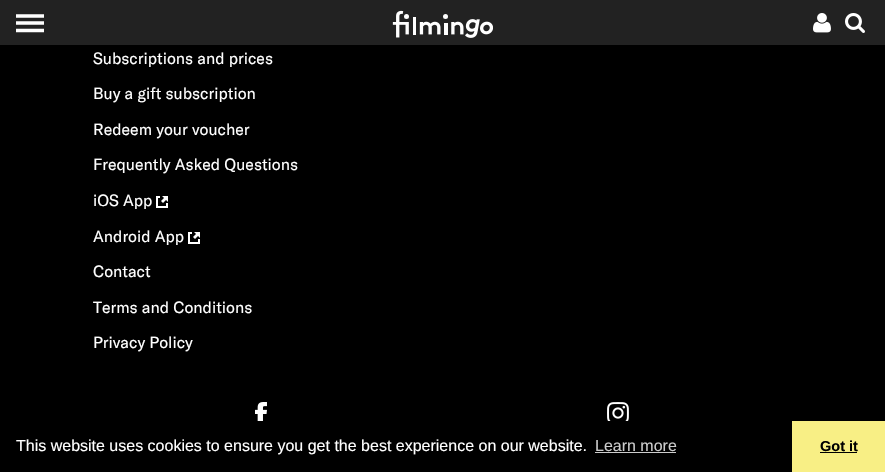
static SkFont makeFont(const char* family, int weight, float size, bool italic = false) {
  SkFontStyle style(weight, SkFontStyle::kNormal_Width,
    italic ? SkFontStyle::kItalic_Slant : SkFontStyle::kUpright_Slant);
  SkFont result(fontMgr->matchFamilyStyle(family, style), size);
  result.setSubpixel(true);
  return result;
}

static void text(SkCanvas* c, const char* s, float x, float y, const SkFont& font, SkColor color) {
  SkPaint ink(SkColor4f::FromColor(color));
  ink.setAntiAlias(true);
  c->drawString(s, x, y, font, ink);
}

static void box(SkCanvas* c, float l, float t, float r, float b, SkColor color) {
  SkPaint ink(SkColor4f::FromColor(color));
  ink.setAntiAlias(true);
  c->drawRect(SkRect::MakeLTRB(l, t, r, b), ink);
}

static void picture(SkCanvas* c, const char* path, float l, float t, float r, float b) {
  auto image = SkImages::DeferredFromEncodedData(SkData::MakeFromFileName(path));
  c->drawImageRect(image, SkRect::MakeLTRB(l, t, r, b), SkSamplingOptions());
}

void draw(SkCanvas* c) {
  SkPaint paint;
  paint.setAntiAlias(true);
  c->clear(0xff000000);
  box(c, 0, 0, 885, 45, 0xff222222);
  picture(c, "img_01.png", 813, 13, 831, 33);
  picture(c, "img_02.png", 845, 13, 865, 33);
  paint.setStyle(SkPaint::kStroke_Style);
  paint.setStrokeWidth(3.6f);
  paint.setColor(0xffffffff);
  c->drawPath(SkPathBuilder().moveTo(16, 16).lineTo(44, 16).moveTo(16, 23).lineTo(44, 23).moveTo(16, 30.5f).lineTo(44, 30.5f).detach(), paint);
  paint.setStyle(SkPaint::kFill_Style);
  c->drawCircle(406.5f, 16.5f, 2.5f, paint);
  c->drawCircle(445.5f, 16.5f, 2.5f, paint);
  picture(c, "img_03.png", 392, 10, 493, 38);
  SkFont face1 = makeFont("GT America", 400, 16);
  text(c, "Subscriptions and prices", 93, 64, face1, 0xffffffff);
  text(c, "Buy a gift subscription", 93, 99, face1, 0xffffffff);
  text(c, "Redeem your voucher", 93, 135, face1, 0xffffffff);
  text(c, "Frequently Asked Questions", 93, 170, face1, 0xffffffff);
  text(c, "iOS App", 93, 206, face1, 0xffffffff);
  picture(c, "img_04.png", 156, 196, 168, 208);
  text(c, "Android App", 93, 242, face1, 0xffffffff);
  picture(c, "img_04.png", 188, 232, 200, 244);
  text(c, "Contact", 93, 277, face1, 0xffffffff);
  text(c, "Terms and Conditions", 93, 313, face1, 0xffffffff);
  text(c, "Privacy Policy", 93, 348, face1, 0xffffffff);
  picture(c, "img_05.png", 255, 402, 267, 421);
  picture(c, "img_06.png", 607, 402, 629, 421);
  SkFont face2 = makeFont("Liberation Sans", 400, 16);
  text(c, "This website uses cookies to ensure you get the best experience on our website.", 16, 451, face2, 0xffffffff);
  text(c, "Learn more", 595, 451, face2, 0xffcccccc);
  box(c, 595, 452, 676, 453, 0xffcccccc);
  box(c, 792, 421, 885, 472, 0xfff8ef85);
  SkFont face3 = makeFont("Liberation Sans", 700, 14.5f);
  text(c, "Got it", 820, 451, face3, 0xff000000);
  box(c, 820, 452, 857, 453, 0xff000000);
}
